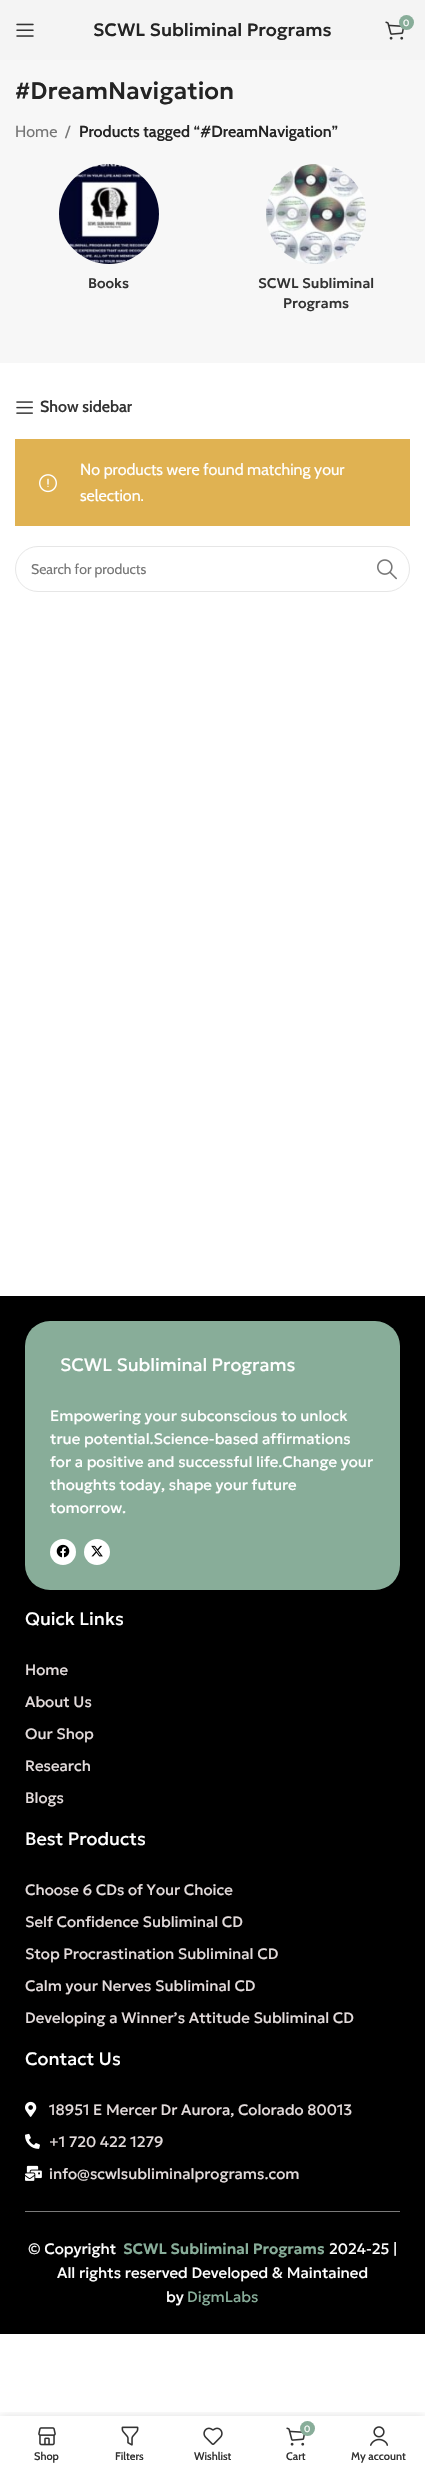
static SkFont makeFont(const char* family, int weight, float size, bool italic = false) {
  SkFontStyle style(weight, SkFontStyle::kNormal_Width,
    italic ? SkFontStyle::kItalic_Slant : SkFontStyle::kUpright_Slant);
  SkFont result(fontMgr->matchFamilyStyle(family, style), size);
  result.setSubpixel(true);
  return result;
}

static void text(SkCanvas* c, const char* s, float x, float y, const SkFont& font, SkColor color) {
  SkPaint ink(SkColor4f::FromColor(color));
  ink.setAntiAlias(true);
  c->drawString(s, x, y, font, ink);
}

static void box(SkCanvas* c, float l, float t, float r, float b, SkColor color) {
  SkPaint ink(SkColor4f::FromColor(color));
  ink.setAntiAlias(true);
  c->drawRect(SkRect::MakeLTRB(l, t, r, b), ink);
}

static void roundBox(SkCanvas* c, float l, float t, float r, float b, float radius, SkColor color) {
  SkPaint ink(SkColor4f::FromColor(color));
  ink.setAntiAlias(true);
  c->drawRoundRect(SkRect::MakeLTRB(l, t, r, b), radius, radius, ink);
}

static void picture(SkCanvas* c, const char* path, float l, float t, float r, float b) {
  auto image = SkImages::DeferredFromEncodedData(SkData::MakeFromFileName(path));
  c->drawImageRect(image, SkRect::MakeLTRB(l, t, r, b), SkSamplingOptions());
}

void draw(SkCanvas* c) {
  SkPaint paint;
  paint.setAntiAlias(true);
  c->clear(0xffffffff);
  box(c, 0, 0, 425, 60, 0xfff4f4f4);
  picture(c, "img_01.png", 16, 23, 34, 37);
  SkFont face1 = makeFont("Geologica", 500, 18);
  text(c, "SCWL Subliminal Programs", 93, 36, face1, 0xff242424);
  picture(c, "img_02.png", 385, 21, 404, 40);
  paint.setColor(0xff88ad99);
  c->drawCircle(406.5f, 22.5f, 7.5f, paint);
  SkFont face2 = makeFont("Cabin", 400, 9);
  text(c, "0", 403, 26, face2, 0xffffffff);
  box(c, 0, 60, 425, 363, 0xfff7f7f7);
  SkFont face3 = makeFont("Geologica", 500, 24);
  text(c, "#DreamNavigation", 15, 99, face3, 0xff242424);
  SkFont face4 = makeFont("Cabin", 400, 16);
  text(c, "Home", 15, 137, face4, 0xff767676);
  text(c, "/", 65, 137, face4, 0xff767676);
  SkFont face5 = makeFont("Cabin", 600, 16);
  text(c, "Products tagged “#DreamNavigation”", 79, 137, face5, 0xff242424);
  picture(c, "img_03.png", 59, 164, 159, 264);
  SkFont face6 = makeFont("Geologica", 500, 14);
  text(c, "Books", 88, 288, face6, 0xff333333);
  picture(c, "img_04.png", 266, 164, 366, 264);
  text(c, "SCWL Subliminal", 258, 288, face6, 0xff333333);
  text(c, "Programs", 283, 308, face6, 0xff333333);
  picture(c, "img_05.png", 16, 401, 33, 414);
  text(c, "Show sidebar", 40, 412, face5, 0xff333333);
  box(c, 15, 439, 410, 526, 0xffe0b252);
  text(c, "No products were found matching your", 80, 475, face4, 0xffffffff);
  picture(c, "img_06.png", 39, 474, 57, 493);
  text(c, "selection.", 80, 501, face4, 0xffffffff);
  paint.setStyle(SkPaint::kStroke_Style);
  paint.setStrokeWidth(1);
  paint.setColor(0xffe6e6e6);
  c->drawRoundRect(SkRect::MakeLTRB(15.5f, 546.5f, 409.5f, 591.5f), 22.5f, 22.5f, paint);
  SkFont face7 = makeFont("Cabin", 400, 14);
  text(c, "Search for products", 31, 574, face7, 0xff767676);
  picture(c, "img_07.png", 377, 559, 397, 580);
  box(c, 0, 1296, 425, 2334, 0xff000000);
  roundBox(c, 25, 1321, 400, 1590, 25, 0xff88ad99);
  SkFont face8 = makeFont("Geologica", 400, 18);
  text(c, "SCWL Subliminal Programs", 60, 1371, face8, 0xffffffff);
  SkFont face9 = makeFont("Geologica", 400, 15);
  text(c, "Empowering your subconscious to unlock", 50, 1421, face9, 0xffffffff);
  text(c, "true potential.Science-based affirmations", 50, 1444, face9, 0xffffffff);
  text(c, "for a positive and successful life.Change your", 50, 1467, face9, 0xffffffff);
  text(c, "thoughts today, shape your future", 50, 1490, face9, 0xffffffff);
  text(c, "tomorrow.", 50, 1513, face9, 0xffffffff);
  paint.setStyle(SkPaint::kFill_Style);
  paint.setColor(0xffffffff);
  c->drawCircle(63, 1552, 13, paint);
  picture(c, "img_08.png", 56, 1544, 70, 1558);
  c->drawCircle(97, 1552, 13, paint);
  picture(c, "img_09.png", 91, 1545, 103, 1557);
  text(c, "Quick Links", 25, 1625, face8, 0xffffffff);
  text(c, "Home", 25, 1675, face9, 0xffe4dcdc);
  text(c, "About Us", 25, 1707, face9, 0xffe4dcdc);
  text(c, "Our Shop", 25, 1739, face9, 0xffe4dcdc);
  text(c, "Research", 25, 1771, face9, 0xffe4dcdc);
  text(c, "Blogs", 25, 1803, face9, 0xffe4dcdc);
  text(c, "Best Products", 25, 1845, face8, 0xffffffff);
  text(c, "Choose 6 CDs of Your Choice", 25, 1895, face9, 0xffe4dcdc);
  text(c, "Self Confidence Subliminal CD", 25, 1927, face9, 0xffe4dcdc);
  text(c, "Stop Procrastination Subliminal CD", 25, 1959, face9, 0xffe4dcdc);
  text(c, "Calm your Nerves Subliminal CD", 25, 1991, face9, 0xffe4dcdc);
  text(c, "Developing a Winner’s Attitude Subliminal CD", 25, 2023, face9, 0xffe4dcdc);
  text(c, "Contact Us", 25, 2065, face8, 0xffffffff);
  picture(c, "img_10.png", 25, 2101, 37, 2117);
  text(c, "18951 E Mercer Dr Aurora, Colorado 80013", 49, 2115, face9, 0xffe4dcdc);
  picture(c, "img_11.png", 25, 2133, 40, 2149);
  text(c, "+1 720 422 1279", 49, 2147, face9, 0xffe4dcdc);
  picture(c, "img_12.png", 25, 2165, 42, 2181);
  text(c, "info@scwlsubliminalprograms.com", 49, 2179, face9, 0xffe4dcdc);
  box(c, 25, 2211, 400, 2212, 0xff7a7a7a);
  text(c, "© Copyright", 28, 2254, face9, 0xffffffff);
  SkFont face10 = makeFont("Geologica", 600, 15);
  text(c, "SCWL Subliminal Programs", 123, 2254, face10, 0xff88ad99);
  text(c, "2024-25 |", 329, 2254, face9, 0xffffffff);
  text(c, "All rights reserved Developed & Maintained", 57, 2278, face9, 0xffffffff);
  text(c, "by", 166, 2302, face9, 0xffffffff);
  text(c, "DigmLabs", 187, 2302, face9, 0xff88ad99);
  c->save();
  c->clipRect(SkRect::MakeLTRB(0, 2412, 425, 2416));
  paint.setColor(0x1f000000);
  paint.setMaskFilter(SkMaskFilter::MakeBlur(kNormal_SkBlurStyle, 4.5f));
  c->drawRect(SkRect::MakeLTRB(0, 2416, 425, 2471), paint);
  paint.setMaskFilter(nullptr);
  c->restore();
  picture(c, "img_13.png", 38, 2427, 56, 2446);
  SkFont face11 = makeFont("Cabin", 600, 11);
  text(c, "Shop", 34, 2460, face11, 0xff333333);
  picture(c, "img_14.png", 121, 2426, 139, 2446);
  text(c, "Filters", 115, 2460, face11, 0xff333333);
  picture(c, "img_15.png", 203, 2427, 223, 2445);
  text(c, "Wishlist", 194, 2460, face11, 0xff333333);
  picture(c, "img_16.png", 286, 2427, 305, 2446);
  paint.setColor(0xff88ad99);
  c->drawCircle(307.5f, 2428.5f, 7.5f, paint);
  text(c, "0", 304, 2432, face2, 0xffffffff);
  text(c, "Cart", 286, 2460, face11, 0xff333333);
  picture(c, "img_17.png", 370, 2426, 388, 2446);
  text(c, "My account", 351, 2460, face11, 0xff333333);
}
